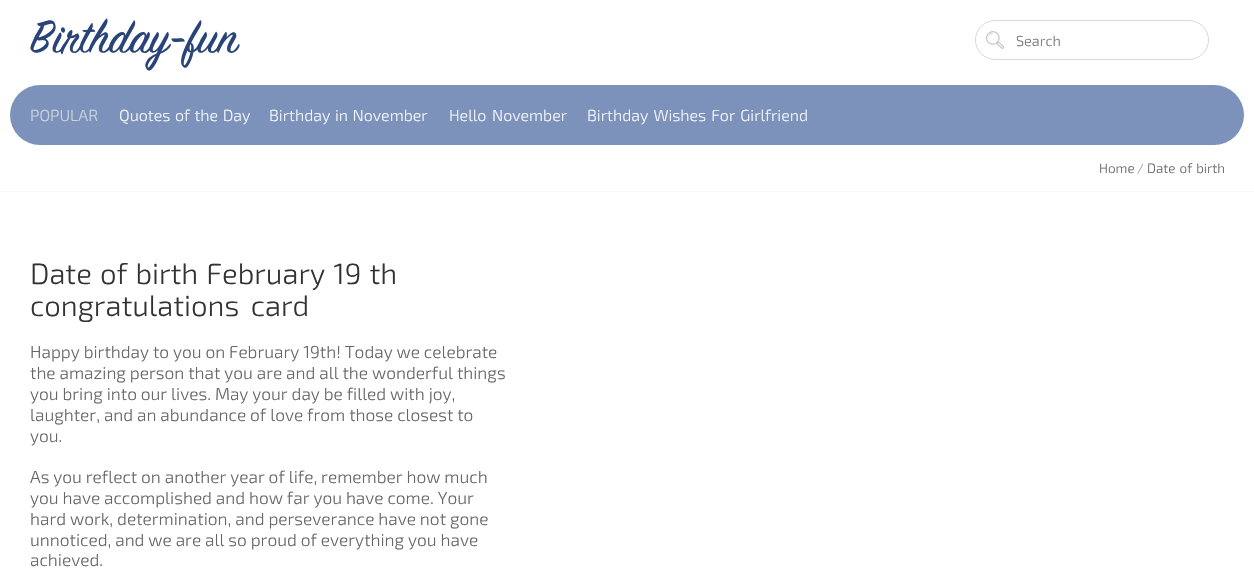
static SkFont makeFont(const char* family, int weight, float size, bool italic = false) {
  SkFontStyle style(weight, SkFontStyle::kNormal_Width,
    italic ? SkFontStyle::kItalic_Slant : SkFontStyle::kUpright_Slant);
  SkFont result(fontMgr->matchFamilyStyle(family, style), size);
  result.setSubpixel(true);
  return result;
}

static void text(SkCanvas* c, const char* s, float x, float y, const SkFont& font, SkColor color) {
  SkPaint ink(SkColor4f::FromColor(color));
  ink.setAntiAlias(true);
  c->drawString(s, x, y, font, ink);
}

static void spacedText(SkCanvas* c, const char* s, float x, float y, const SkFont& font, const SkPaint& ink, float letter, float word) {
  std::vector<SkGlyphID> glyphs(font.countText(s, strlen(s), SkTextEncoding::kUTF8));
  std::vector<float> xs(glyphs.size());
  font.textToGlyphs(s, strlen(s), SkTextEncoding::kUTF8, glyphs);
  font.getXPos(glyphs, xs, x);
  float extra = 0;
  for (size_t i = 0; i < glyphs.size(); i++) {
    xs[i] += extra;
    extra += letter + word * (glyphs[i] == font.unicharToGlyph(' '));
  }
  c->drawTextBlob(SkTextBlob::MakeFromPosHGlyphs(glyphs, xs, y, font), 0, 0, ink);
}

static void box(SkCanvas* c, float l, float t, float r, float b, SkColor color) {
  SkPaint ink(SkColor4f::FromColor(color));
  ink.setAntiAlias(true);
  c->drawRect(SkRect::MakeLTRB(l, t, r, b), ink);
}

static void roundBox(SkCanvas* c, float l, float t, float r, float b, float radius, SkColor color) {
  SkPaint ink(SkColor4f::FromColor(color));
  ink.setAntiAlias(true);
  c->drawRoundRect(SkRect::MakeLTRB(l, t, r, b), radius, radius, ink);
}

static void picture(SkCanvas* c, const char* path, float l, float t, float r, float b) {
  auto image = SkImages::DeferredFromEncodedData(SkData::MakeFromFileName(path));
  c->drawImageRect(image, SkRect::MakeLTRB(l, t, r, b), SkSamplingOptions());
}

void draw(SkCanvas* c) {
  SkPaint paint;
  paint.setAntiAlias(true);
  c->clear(0xffffffff);
  SkFont face1 = makeFont("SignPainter", 400, 50.5f);
  text(c, "Birthday-fun", 30, 52, face1, 0xff294479);
  paint.setStyle(SkPaint::kStroke_Style);
  paint.setStrokeWidth(1);
  paint.setColor(0xffd8d8d8);
  c->drawRoundRect(SkRect::MakeLTRB(975.5f, 20.5f, 1208.5f, 59.5f), 19.5f, 19.5f, paint);
  picture(c, "img_01.png", 986, 31, 1004, 49);
  SkFont face2 = makeFont("Exo 2", 300, 14.5f);
  text(c, "Search", 1016, 46, face2, 0xff757575);
  roundBox(c, 10, 85, 1244, 145, 30, 0xff7d92ba);
  SkFont face3 = makeFont("Exo 2", 300, 16);
  text(c, "POPULAR", 30, 121, face3, 0xffcbd3e3);
  paint.setStyle(SkPaint::kFill_Style);
  paint.setColor(0xfff2f4f8);
  spacedText(c, "Quotes of the Day", 119, 121, face3, paint, 0, 1);
  spacedText(c, "Birthday in November", 269, 121, face3, paint, 0, 1);
  spacedText(c, "Hello November", 449, 121, face3, paint, 0, 2);
  spacedText(c, "Birthday Wishes For Girlfriend", 587, 121, face3, paint, 0, 1.5f);
  box(c, 0, 191, 1254, 192, 0xfffafafa);
  SkFont face4 = makeFont("Exo 2", 300, 13.5f);
  text(c, "Home", 1099, 173, face4, 0xff666666);
  text(c, "/", 1137, 173, face4, 0xff999999);
  paint.setColor(0xff666666);
  spacedText(c, "Date of birth", 1147, 173, face4, paint, 0, 1);
  SkFont face5 = makeFont("Exo 2", 300, 29.3f);
  paint.setColor(0xff333333);
  spacedText(c, "Date of birth February 19 th", 30, 284, face5, paint, 0, 1.5f);
  spacedText(c, "congratulations card", 30, 316, face5, paint, 0, 5);
  SkFont face6 = makeFont("Exo 2", 300, 17.3f);
  text(c, "Happy birthday to you on February 19th! Today we celebrate", 30, 358, face6, 0xff666666);
  text(c, "the amazing person that you are and all the wonderful things", 30, 379, face6, 0xff666666);
  text(c, "you bring into our lives. May your day be filled with joy,", 30, 400, face6, 0xff666666);
  text(c, "laughter, and an abundance of love from those closest to", 30, 421, face6, 0xff666666);
  text(c, "you.", 30, 442, face6, 0xff666666);
  text(c, "As you reflect on another year of life, remember how much", 30, 483, face6, 0xff666666);
  text(c, "you have accomplished and how far you have come. Your", 30, 504, face6, 0xff666666);
  text(c, "hard work, determination, and perseverance have not gone", 30, 525, face6, 0xff666666);
  text(c, "unnoticed, and we are all so proud of everything you have", 30, 546, face6, 0xff666666);
  text(c, "achieved.", 30, 566, face6, 0xff666666);
}
